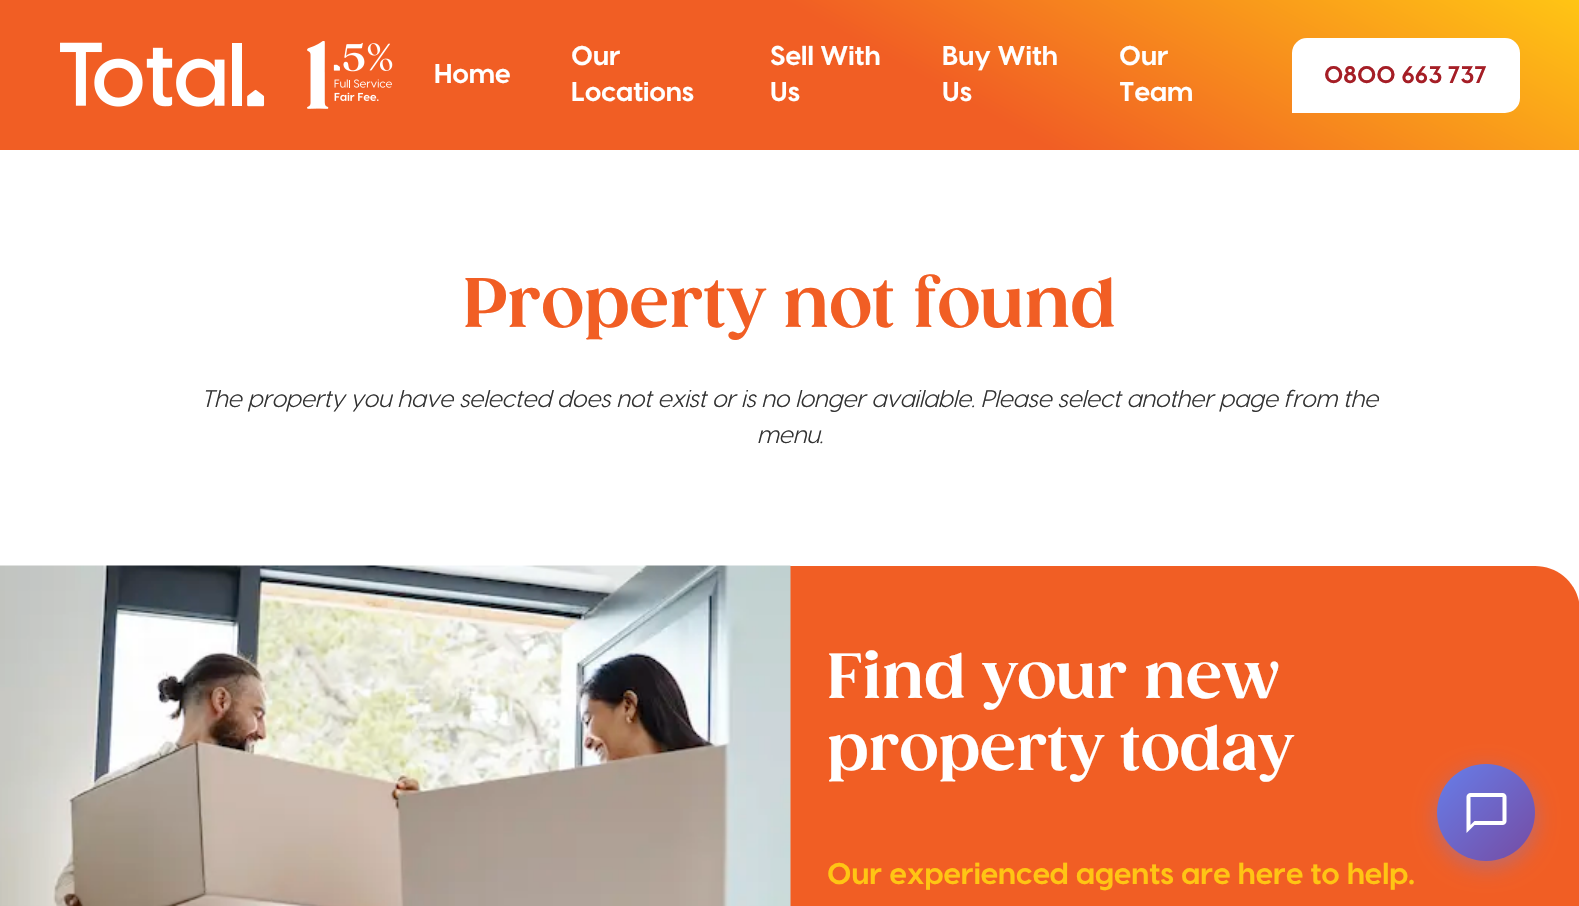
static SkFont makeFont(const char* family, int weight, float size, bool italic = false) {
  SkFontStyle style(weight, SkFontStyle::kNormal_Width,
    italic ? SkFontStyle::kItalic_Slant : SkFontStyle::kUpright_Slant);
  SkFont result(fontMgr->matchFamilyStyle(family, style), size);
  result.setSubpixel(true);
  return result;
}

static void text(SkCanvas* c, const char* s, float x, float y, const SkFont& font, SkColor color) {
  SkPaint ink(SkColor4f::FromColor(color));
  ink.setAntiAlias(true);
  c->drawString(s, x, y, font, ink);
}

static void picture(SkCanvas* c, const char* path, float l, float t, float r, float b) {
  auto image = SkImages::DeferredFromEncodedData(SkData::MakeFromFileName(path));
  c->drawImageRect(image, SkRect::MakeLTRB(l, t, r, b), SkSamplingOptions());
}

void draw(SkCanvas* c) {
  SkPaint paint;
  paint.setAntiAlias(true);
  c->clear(0xffffffff);
  {
    const SkColor colors[] = {0xfff15e24, 0xfff15e24, 0xffffc514};
    const float stops[] = {0, 0.57f, 1};
    const SkPoint ends[] = {{572, 467}, {1007, -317}};
    paint.setShader(SkGradientShader::MakeLinear(ends, colors, stops, 3, SkTileMode::kClamp));
    paint.setAlpha(255);
  }
  c->drawRect(SkRect::MakeLTRB(0, 0, 1579, 150), paint);
  picture(c, "img_01.png", 60, 41, 393, 109);
  SkFont face1 = makeFont("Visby", 700, 27);
  text(c, "Home", 434, 83, face1, 0xffffffff);
  text(c, "Our", 571, 65, face1, 0xffffffff);
  text(c, "Locations", 571, 101, face1, 0xffffffff);
  text(c, "Sell With", 770, 65, face1, 0xffffffff);
  text(c, "Us", 770, 101, face1, 0xffffffff);
  text(c, "Buy With", 942, 65, face1, 0xffffffff);
  text(c, "Us", 942, 101, face1, 0xffffffff);
  text(c, "Our", 1119, 65, face1, 0xffffffff);
  text(c, "Team", 1119, 101, face1, 0xffffffff);
  paint.setShader(nullptr);
  paint.setColor(0xffffffff);
  c->drawPath(SkPathBuilder().moveTo(1307, 39.5f).lineTo(1505, 39.5f).cubicTo(1512.5f, 39.5f, 1518.5f, 45.5f, 1518.5f, 53).lineTo(1518.5f, 98).cubicTo(1518.5f, 105.5f, 1512.5f, 111.5f, 1505, 111.5f).lineTo(1293.5f, 111.5f).lineTo(1293.5f, 53).cubicTo(1293.5f, 45.5f, 1299.5f, 39.5f, 1307, 39.5f).close().detach(), paint);
  paint.setStyle(SkPaint::kStroke_Style);
  paint.setStrokeWidth(3);
  c->drawPath(SkPathBuilder().moveTo(1307, 39.5f).lineTo(1505, 39.5f).cubicTo(1512.5f, 39.5f, 1518.5f, 45.5f, 1518.5f, 53).lineTo(1518.5f, 98).cubicTo(1518.5f, 105.5f, 1512.5f, 111.5f, 1505, 111.5f).lineTo(1293.5f, 111.5f).lineTo(1293.5f, 53).cubicTo(1293.5f, 45.5f, 1299.5f, 39.5f, 1307, 39.5f).close().detach(), paint);
  SkFont face2 = makeFont("Visby", 700, 24);
  text(c, "0800 663 737", 1324, 83, face2, 0xffa51e26);
  SkFont face3 = makeFont("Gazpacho", 700, 67.5f);
  text(c, "Property not found", 463, 327, face3, 0xfff15e24);
  SkFont face4 = makeFont("Visby", 400, 24, true);
  text(c, "The property you have selected does not exist or is no longer available. Please select another page from the", 201, 407, face4, 0xff333333);
  text(c, "menu.", 757, 443, face4, 0xff333333);
  paint.setStyle(SkPaint::kFill_Style);
  paint.setColor(0xfff15e24);
  c->drawPath(SkPathBuilder().moveTo(0, 566).lineTo(1535, 566).cubicTo(1560, 566, 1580, 586, 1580, 611).lineTo(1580, 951).lineTo(45, 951).cubicTo(20, 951, 0, 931, 0, 906).close().detach(), paint);
  picture(c, "img_02.png", 0, 565, 791, 906);
  SkFont face5 = makeFont("Gazpacho", 700, 61.5f);
  text(c, "Find your new", 827, 698, face5, 0xffffffff);
  text(c, "property today", 827, 770, face5, 0xffffffff);
  SkFont face6 = makeFont("Visby", 700, 30);
  text(c, "Our experienced agents are here to help.", 827, 884, face6, 0xffffc514);
  paint.setColor(0x66667eea);
  paint.setMaskFilter(SkMaskFilter::MakeBlur(kNormal_SkBlurStyle, 11));
  c->drawRoundRect(SkRect::MakeLTRB(1437, 770, 1535, 867), 48.5f, 48.5f, paint);
  paint.setMaskFilter(nullptr);
  {
    const SkColor colors[] = {0xff667eea, 0xff764ba2};
    const float stops[] = {0, 1};
    const SkPoint ends[] = {{1437, 764}, {1535, 861}};
    paint.setShader(SkGradientShader::MakeLinear(ends, colors, stops, 2, SkTileMode::kClamp));
    paint.setAlpha(255);
  }
  c->drawRoundRect(SkRect::MakeLTRB(1437, 764, 1535, 861), 48.5f, 48.5f, paint);
  picture(c, "img_03.png", 1466, 793, 1507, 833);
}
